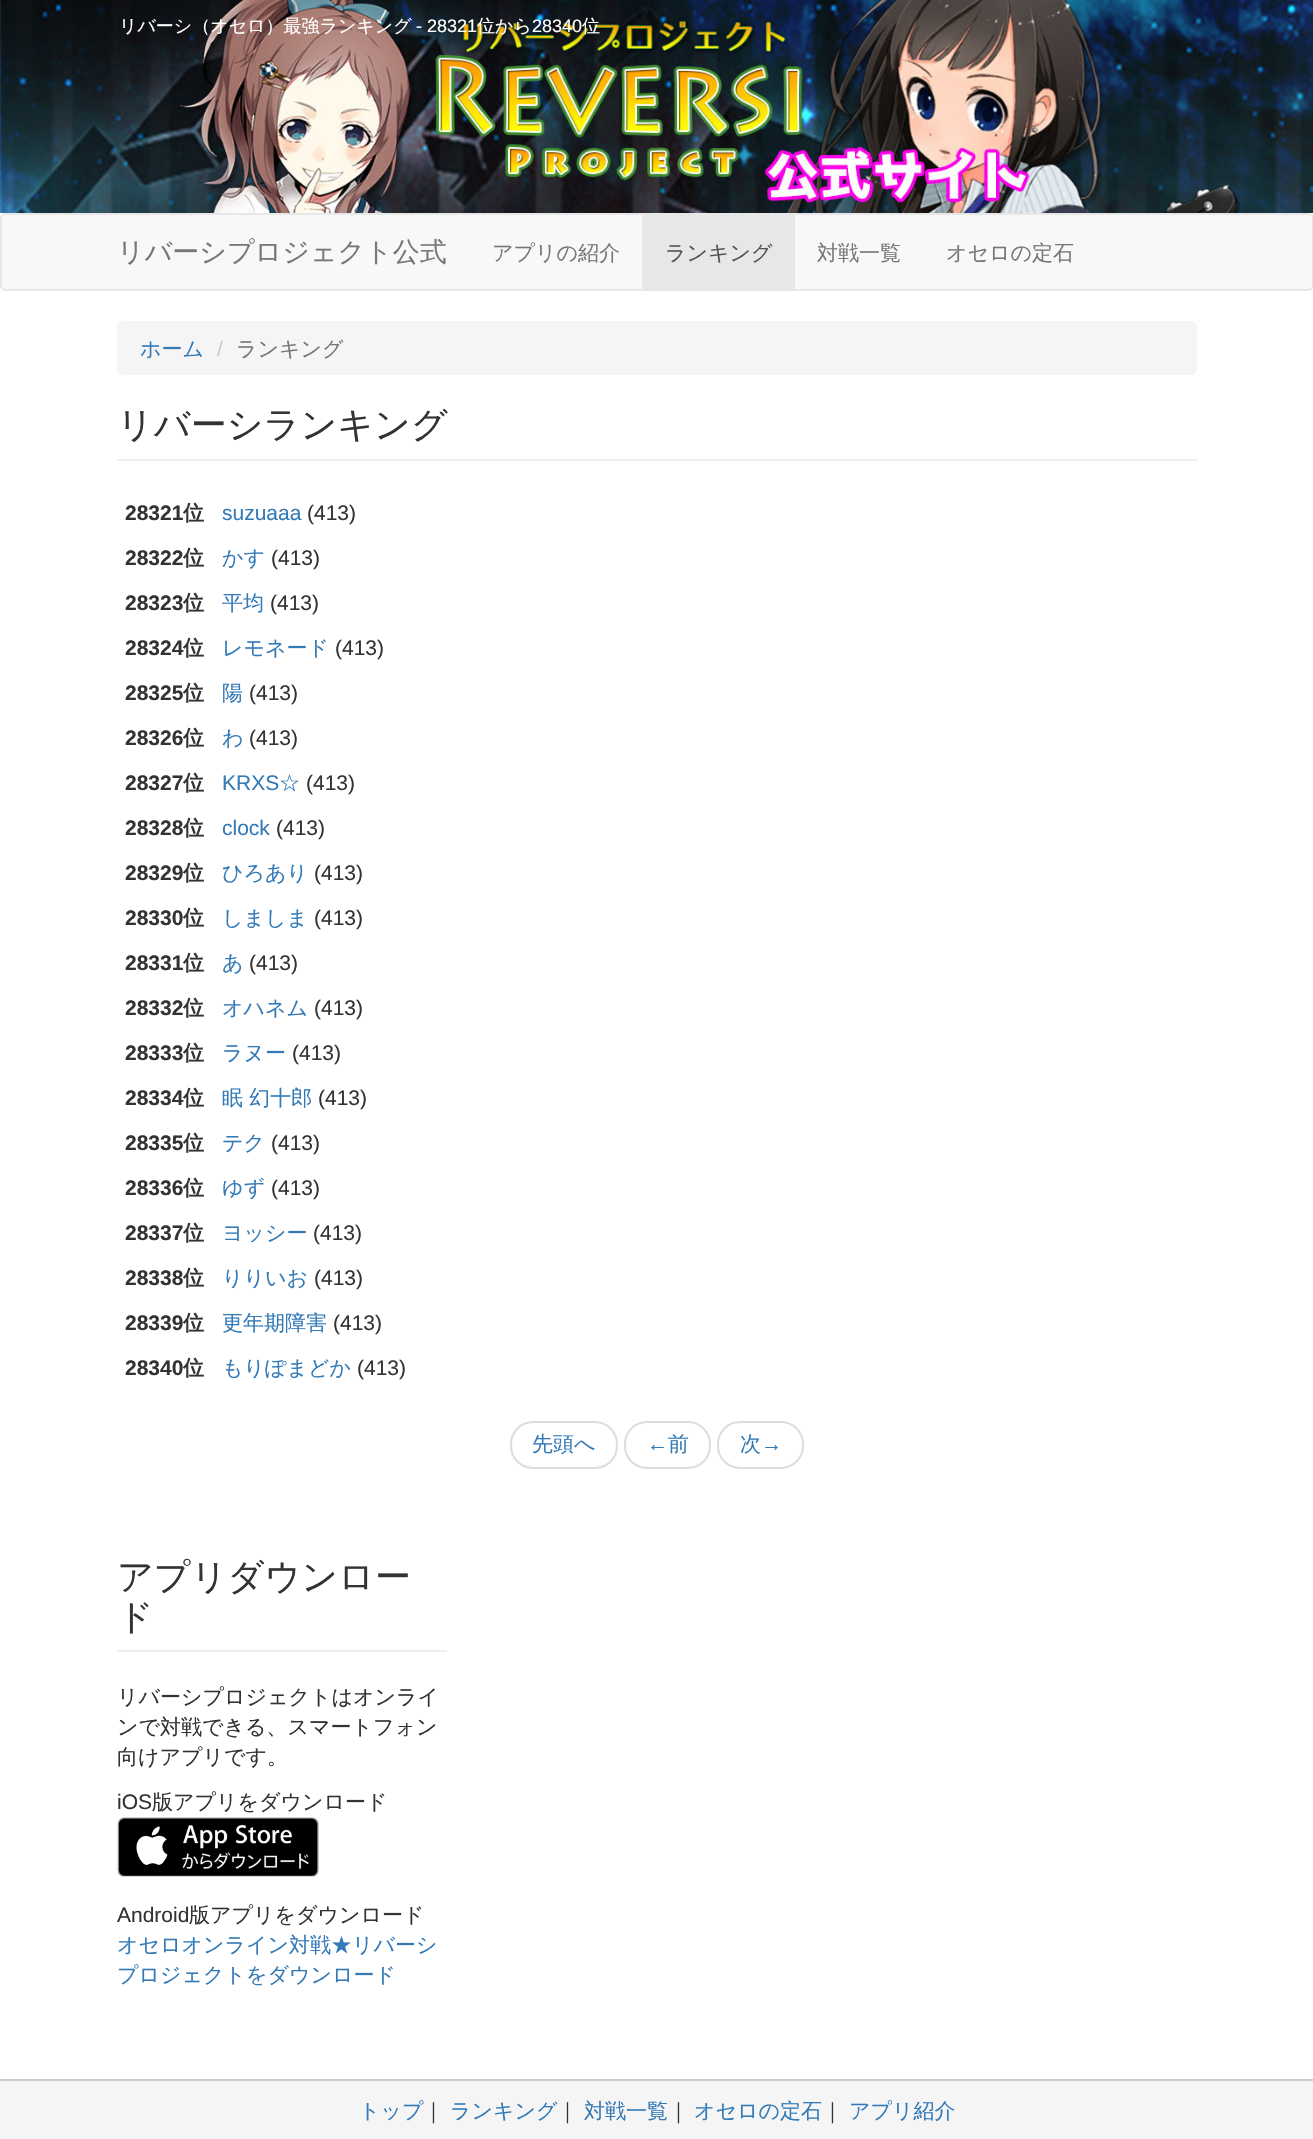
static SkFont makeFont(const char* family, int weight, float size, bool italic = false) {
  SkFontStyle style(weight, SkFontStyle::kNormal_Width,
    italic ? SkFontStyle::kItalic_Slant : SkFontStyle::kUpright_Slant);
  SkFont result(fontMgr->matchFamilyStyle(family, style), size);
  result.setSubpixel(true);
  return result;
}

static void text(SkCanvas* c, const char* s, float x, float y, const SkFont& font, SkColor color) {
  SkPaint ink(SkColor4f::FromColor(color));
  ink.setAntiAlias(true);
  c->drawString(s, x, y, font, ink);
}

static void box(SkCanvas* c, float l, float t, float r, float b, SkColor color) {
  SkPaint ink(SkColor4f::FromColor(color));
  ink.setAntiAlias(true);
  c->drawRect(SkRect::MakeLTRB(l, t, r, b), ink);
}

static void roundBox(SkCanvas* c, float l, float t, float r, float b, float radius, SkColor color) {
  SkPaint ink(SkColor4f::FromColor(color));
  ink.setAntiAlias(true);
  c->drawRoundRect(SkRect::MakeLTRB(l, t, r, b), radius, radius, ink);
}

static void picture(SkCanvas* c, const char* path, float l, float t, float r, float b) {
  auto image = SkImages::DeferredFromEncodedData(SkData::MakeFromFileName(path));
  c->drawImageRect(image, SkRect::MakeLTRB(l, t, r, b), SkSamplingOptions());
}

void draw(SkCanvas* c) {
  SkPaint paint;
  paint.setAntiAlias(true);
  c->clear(0xffffffff);
  picture(c, "img_01.png", 0, 0, 1313, 213);
  SkFont face1 = makeFont("WenQuanYi Zen Hei", 500, 18);
  text(c, "リバーシ（オセロ）最強ランキング", 119, 32, face1, 0xffffffff);
  SkFont face2 = makeFont("Liberation Sans", 400, 18);
  text(c, "- 28321", 416, 32, face2, 0xffffffff);
  text(c, "位から", 477, 32, face1, 0xffffffff);
  text(c, "28340", 532, 32, face2, 0xffffffff);
  text(c, "位", 582, 32, face1, 0xffffffff);
  paint.setColor(0xfff8f8f8);
  c->drawRoundRect(SkRect::MakeLTRB(1, 214, 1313, 290), 5, 5, paint);
  paint.setStyle(SkPaint::kStroke_Style);
  paint.setStrokeWidth(2);
  paint.setColor(0xffe7e7e7);
  c->drawRoundRect(SkRect::MakeLTRB(1, 214, 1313, 290), 5, 5, paint);
  SkFont face3 = makeFont("WenQuanYi Zen Hei", 500, 27);
  text(c, "リバーシプロジェクト公式", 117, 261, face3, 0xff777777);
  SkFont face4 = makeFont("WenQuanYi Zen Hei", 500, 21);
  text(c, "アプリの紹介", 492, 260, face4, 0xff777777);
  box(c, 642, 215, 795, 289, 0xffe7e7e7);
  text(c, "ランキング", 665, 260, face4, 0xff555555);
  text(c, "対戦一覧", 817, 260, face4, 0xff777777);
  text(c, "オセロの定石", 946, 260, face4, 0xff777777);
  roundBox(c, 117, 321, 1197, 375, 6, 0xfff5f5f5);
  text(c, "ホーム", 140, 356, face4, 0xff337ab7);
  SkFont face5 = makeFont("Liberation Sans", 400, 21);
  text(c, "/", 217, 356, face5, 0xffcccccc);
  text(c, "ランキング", 236, 356, face4, 0xff777777);
  box(c, 117, 459, 1197, 461, 0xffeeeeee);
  SkFont face6 = makeFont("WenQuanYi Zen Hei", 500, 36);
  text(c, "リバーシランキング", 117, 437, face6, 0xff333333);
  SkFont face7 = makeFont("Liberation Sans", 700, 21);
  text(c, "28321", 125, 520, face7, 0xff333333);
  SkFont face8 = makeFont("WenQuanYi Zen Hei", 700, 21);
  text(c, "位", 183, 520, face8, 0xff333333);
  text(c, "suzuaaa", 222, 520, face5, 0xff337ab7);
  text(c, "(413)", 307, 520, face5, 0xff333333);
  text(c, "28322", 125, 565, face7, 0xff333333);
  text(c, "位", 183, 565, face8, 0xff333333);
  text(c, "かす", 222, 565, face4, 0xff337ab7);
  text(c, "(413)", 271, 565, face5, 0xff333333);
  text(c, "28323", 125, 610, face7, 0xff333333);
  text(c, "位", 183, 610, face8, 0xff333333);
  text(c, "平均", 222, 610, face4, 0xff337ab7);
  text(c, "(413)", 270, 610, face5, 0xff333333);
  text(c, "28324", 125, 655, face7, 0xff333333);
  text(c, "位", 183, 655, face8, 0xff333333);
  text(c, "レモネード", 222, 655, face4, 0xff337ab7);
  text(c, "(413)", 335, 655, face5, 0xff333333);
  text(c, "28325", 125, 700, face7, 0xff333333);
  text(c, "位", 183, 700, face8, 0xff333333);
  text(c, "陽", 222, 700, face4, 0xff337ab7);
  text(c, "(413)", 249, 700, face5, 0xff333333);
  text(c, "28326", 125, 745, face7, 0xff333333);
  text(c, "位", 183, 745, face8, 0xff333333);
  text(c, "わ", 222, 745, face4, 0xff337ab7);
  text(c, "(413)", 249, 745, face5, 0xff333333);
  text(c, "28327", 125, 790, face7, 0xff333333);
  text(c, "位", 183, 790, face8, 0xff333333);
  text(c, "KRXS", 222, 790, face5, 0xff337ab7);
  text(c, "☆", 279, 790, face4, 0xff337ab7);
  text(c, "(413)", 306, 790, face5, 0xff333333);
  text(c, "28328", 125, 835, face7, 0xff333333);
  text(c, "位", 183, 835, face8, 0xff333333);
  text(c, "clock", 222, 835, face5, 0xff337ab7);
  text(c, "(413)", 276, 835, face5, 0xff333333);
  text(c, "28329", 125, 880, face7, 0xff333333);
  text(c, "位", 183, 880, face8, 0xff333333);
  text(c, "ひろあり", 222, 880, face4, 0xff337ab7);
  text(c, "(413)", 314, 880, face5, 0xff333333);
  text(c, "28330", 125, 925, face7, 0xff333333);
  text(c, "位", 183, 925, face8, 0xff333333);
  text(c, "しましま", 222, 925, face4, 0xff337ab7);
  text(c, "(413)", 314, 925, face5, 0xff333333);
  text(c, "28331", 125, 970, face7, 0xff333333);
  text(c, "位", 183, 970, face8, 0xff333333);
  text(c, "あ", 222, 970, face4, 0xff337ab7);
  text(c, "(413)", 249, 970, face5, 0xff333333);
  text(c, "28332", 125, 1015, face7, 0xff333333);
  text(c, "位", 183, 1015, face8, 0xff333333);
  text(c, "オハネム", 222, 1015, face4, 0xff337ab7);
  text(c, "(413)", 314, 1015, face5, 0xff333333);
  text(c, "28333", 125, 1060, face7, 0xff333333);
  text(c, "位", 183, 1060, face8, 0xff333333);
  text(c, "ラヌー", 222, 1060, face4, 0xff337ab7);
  text(c, "(413)", 292, 1060, face5, 0xff333333);
  text(c, "28334", 125, 1105, face7, 0xff333333);
  text(c, "位", 183, 1105, face8, 0xff333333);
  text(c, "眠 幻十郎", 222, 1105, face4, 0xff337ab7);
  text(c, "(413)", 318, 1105, face5, 0xff333333);
  text(c, "28335", 125, 1150, face7, 0xff333333);
  text(c, "位", 183, 1150, face8, 0xff333333);
  text(c, "テク", 222, 1150, face4, 0xff337ab7);
  text(c, "(413)", 271, 1150, face5, 0xff333333);
  text(c, "28336", 125, 1195, face7, 0xff333333);
  text(c, "位", 183, 1195, face8, 0xff333333);
  text(c, "ゆず", 222, 1195, face4, 0xff337ab7);
  text(c, "(413)", 271, 1195, face5, 0xff333333);
  text(c, "28337", 125, 1240, face7, 0xff333333);
  text(c, "位", 183, 1240, face8, 0xff333333);
  text(c, "ヨッシー", 222, 1240, face4, 0xff337ab7);
  text(c, "(413)", 313, 1240, face5, 0xff333333);
  text(c, "28338", 125, 1285, face7, 0xff333333);
  text(c, "位", 183, 1285, face8, 0xff333333);
  text(c, "りりいお", 222, 1285, face4, 0xff337ab7);
  text(c, "(413)", 314, 1285, face5, 0xff333333);
  text(c, "28339", 125, 1330, face7, 0xff333333);
  text(c, "位", 183, 1330, face8, 0xff333333);
  text(c, "更年期障害", 222, 1330, face4, 0xff337ab7);
  text(c, "(413)", 333, 1330, face5, 0xff333333);
  text(c, "28340", 125, 1375, face7, 0xff333333);
  text(c, "位", 183, 1375, face8, 0xff333333);
  text(c, "もりぽまどか", 222, 1375, face4, 0xff337ab7);
  text(c, "(413)", 357, 1375, face5, 0xff333333);
  paint.setColor(0xffdddddd);
  c->drawRoundRect(SkRect::MakeLTRB(511, 1422, 617, 1468), 22, 22, paint);
  text(c, "先頭へ", 532, 1451, face4, 0xff337ab7);
  c->drawRoundRect(SkRect::MakeLTRB(625, 1422, 710, 1468), 22, 22, paint);
  text(c, "←", 647, 1451, face5, 0xff337ab7);
  text(c, "前", 668, 1451, face4, 0xff337ab7);
  c->drawRoundRect(SkRect::MakeLTRB(718, 1422, 803, 1468), 22, 22, paint);
  text(c, "次", 740, 1451, face4, 0xff337ab7);
  text(c, "→", 761, 1451, face5, 0xff337ab7);
  box(c, 117, 1650, 447, 1652, 0xffeeeeee);
  text(c, "アプリダウンロー", 117, 1589, face6, 0xff333333);
  text(c, "ド", 117, 1629, face6, 0xff333333);
  text(c, "リバーシプロジェクトはオンライ", 117, 1704, face4, 0xff333333);
  text(c, "ンで対戦できる、スマートフォン", 117, 1734, face4, 0xff333333);
  text(c, "向けアプリです。", 117, 1764, face4, 0xff333333);
  text(c, "iOS", 117, 1809, face5, 0xff333333);
  text(c, "版アプリをダウンロード", 152, 1809, face4, 0xff333333);
  picture(c, "img_02.png", 117, 1817, 319, 1877);
  text(c, "Android", 117, 1922, face5, 0xff333333);
  text(c, "版アプリをダウンロード", 189, 1922, face4, 0xff333333);
  text(c, "オセロオンライン対戦★リバーシ", 117, 1952, face4, 0xff337ab7);
  text(c, "プロジェクトをダウンロード", 117, 1982, face4, 0xff337ab7);
  box(c, 0, 2081, 1313, 2139, 0xfff5f5f5);
  box(c, 0, 2079, 1313, 2081, 0xffcccccc);
  text(c, "トップ", 359, 2118, face4, 0xff337ab7);
  text(c, "｜", 423, 2118, face4, 0xff333333);
  text(c, "ランキング", 450, 2118, face4, 0xff337ab7);
  text(c, "｜", 557, 2118, face4, 0xff333333);
  text(c, "対戦一覧", 584, 2118, face4, 0xff337ab7);
  text(c, "｜", 668, 2118, face4, 0xff333333);
  text(c, "オセロの定石", 694, 2118, face4, 0xff337ab7);
  text(c, "｜", 822, 2118, face4, 0xff333333);
  text(c, "アプリ紹介", 849, 2118, face4, 0xff337ab7);
}
